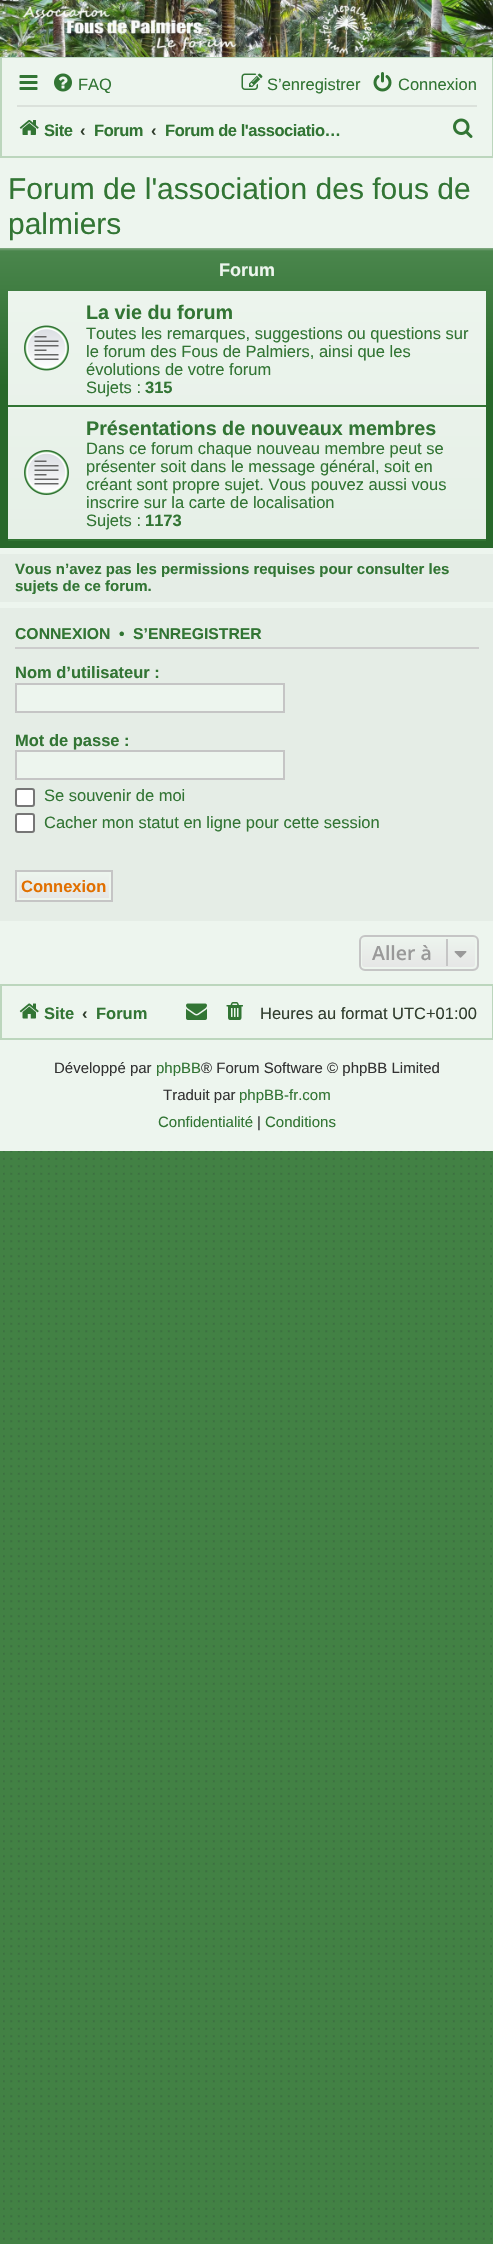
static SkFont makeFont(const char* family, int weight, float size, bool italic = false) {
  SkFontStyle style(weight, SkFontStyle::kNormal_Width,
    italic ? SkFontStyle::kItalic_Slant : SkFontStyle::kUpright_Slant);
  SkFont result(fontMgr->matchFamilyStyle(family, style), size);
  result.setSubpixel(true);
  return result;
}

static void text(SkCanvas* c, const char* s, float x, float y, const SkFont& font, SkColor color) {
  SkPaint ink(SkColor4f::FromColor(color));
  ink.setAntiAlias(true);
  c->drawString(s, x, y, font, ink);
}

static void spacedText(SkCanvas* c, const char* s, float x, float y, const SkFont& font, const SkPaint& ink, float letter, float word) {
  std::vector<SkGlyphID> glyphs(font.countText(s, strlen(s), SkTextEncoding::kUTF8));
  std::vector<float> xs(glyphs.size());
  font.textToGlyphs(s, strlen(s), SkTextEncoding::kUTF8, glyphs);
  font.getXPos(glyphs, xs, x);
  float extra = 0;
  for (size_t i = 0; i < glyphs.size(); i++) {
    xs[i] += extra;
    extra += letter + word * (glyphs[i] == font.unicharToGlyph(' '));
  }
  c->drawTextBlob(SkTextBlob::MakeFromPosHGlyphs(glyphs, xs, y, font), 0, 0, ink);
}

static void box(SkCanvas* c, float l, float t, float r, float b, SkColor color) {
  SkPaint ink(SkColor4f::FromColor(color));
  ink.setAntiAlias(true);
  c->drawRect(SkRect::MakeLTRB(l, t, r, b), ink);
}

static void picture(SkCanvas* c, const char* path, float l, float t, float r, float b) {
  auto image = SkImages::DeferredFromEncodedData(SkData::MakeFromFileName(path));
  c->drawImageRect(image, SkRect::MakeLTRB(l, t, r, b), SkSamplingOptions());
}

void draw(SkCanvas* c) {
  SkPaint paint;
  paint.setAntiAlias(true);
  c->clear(0xff428144);
  picture(c, "img_01.png", 3, 1151, 492, 2240);
  picture(c, "img_02.png", 3, 1151, 492, 2240);
  box(c, 0, 58, 493, 1151, 0xffedf5ee);
  paint.setStyle(SkPaint::kStroke_Style);
  paint.setStrokeWidth(2);
  paint.setColor(0xffbcd6bd);
  c->drawRect(SkRect::MakeLTRB(1, 57, 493, 157), paint);
  picture(c, "img_03.png", 0, 0, 493, 57);
  picture(c, "img_04.png", 19, 75, 38, 90);
  picture(c, "img_05.png", 54, 73, 72, 92);
  SkFont face1 = makeFont("Liberation Sans", 400, 16.5f);
  text(c, "FAQ", 78, 90, face1, 0xff327534);
  picture(c, "img_06.png", 241, 73, 263, 90);
  text(c, "S’enregistrer", 267, 90, face1, 0xff327534);
  picture(c, "img_07.png", 373, 72, 392, 92);
  text(c, "Connexion", 398, 90, face1, 0xff327534);
  box(c, 17, 105, 477, 107, 0xffdbe1db);
  picture(c, "img_08.png", 19, 120, 39, 135);
  SkFont face2 = makeFont("Liberation Sans", 700, 16.5f);
  paint.setStyle(SkPaint::kFill_Style);
  paint.setColor(0xff327534);
  spacedText(c, "Site", 44, 136, face2, paint, -0.45f, 0);
  text(c, "‹", 80, 136, face2, 0xff313e2e);
  spacedText(c, "Forum", 94, 136, face2, paint, -0.45f, 0);
  text(c, "‹", 151, 136, face2, 0xff313e2e);
  spacedText(c, "Forum de l'associatio…", 165, 136, face2, paint, -0.45f, 0);
  picture(c, "img_09.png", 453, 118, 473, 138);
  SkFont face3 = makeFont("Liberation Sans", 400, 30);
  text(c, "Forum de l'association des fous de", 8, 199, face3, 0xff327534);
  text(c, "palmiers", 8, 234, face3, 0xff327534);
  {
    const SkColor colors[] = {0xff85ac86, 0xff4a864c, 0xff28682a, 0xff28682a};
    const float stops[] = {0, 0.01f, 0.46f, 1};
    const SkPoint ends[] = {{247, 248}, {247, 548}};
    paint.setShader(SkGradientShader::MakeLinear(ends, colors, stops, 4, SkTileMode::kClamp));
    paint.setAlpha(255);
  }
  c->drawRect(SkRect::MakeLTRB(0, 248, 493, 548), paint);
  SkFont face4 = makeFont("Liberation Sans", 700, 18);
  text(c, "Forum", 219, 276, face4, 0xffedf5ee);
  {
    const SkColor colors[] = {0xffecf4ed, 0xffe6f0e7};
    const float stops[] = {0, 1};
    const SkPoint ends[] = {{247, 291}, {247, 540}};
    paint.setShader(SkGradientShader::MakeLinear(ends, colors, stops, 2, SkTileMode::kClamp));
    paint.setAlpha(255);
  }
  c->drawRect(SkRect::MakeLTRB(8, 291, 486, 539), paint);
  box(c, 8, 405, 486, 407, 0xff327534);
  picture(c, "img_10.png", 24, 325, 69, 371);
  SkFont face5 = makeFont("Liberation Sans", 700, 19.75f);
  text(c, "La vie du forum", 86, 319, face5, 0xff327534);
  text(c, "Toutes les remarques, suggestions ou questions sur", 86, 339, face1, 0xff327534);
  text(c, "le forum des Fous de Palmiers, ainsi que les", 86, 357, face1, 0xff327534);
  text(c, "évolutions de votre forum", 86, 375, face1, 0xff327534);
  text(c, "Sujets :", 86, 393, face1, 0xff327534);
  text(c, "315", 145, 393, face2, 0xff327534);
  box(c, 8, 407, 486, 409, 0xffedf5ee);
  box(c, 8, 539, 486, 541, 0xff327534);
  picture(c, "img_11.png", 24, 450, 69, 495);
  text(c, "Présentations de nouveaux membres", 86, 435, face5, 0xff327534);
  text(c, "Dans ce forum chaque nouveau membre peut se", 86, 454, face1, 0xff327534);
  text(c, "présenter soit dans le message général, soit en", 86, 472, face1, 0xff327534);
  text(c, "créant sont propre sujet. Vous pouvez aussi vous", 86, 490, face1, 0xff327534);
  text(c, "inscrire sur la carte de localisation", 86, 508, face1, 0xff327534);
  text(c, "Sujets :", 86, 526, face1, 0xff327534);
  text(c, "1173", 145, 526, face2, 0xff327534);
  box(c, 0, 554, 493, 602, 0xffe5ede6);
  SkFont face6 = makeFont("Liberation Sans", 700, 15);
  text(c, "Vous n’avez pas les permissions requises pour consulter les", 15, 574, face6, 0xff327534);
  text(c, "sujets de ce forum.", 15, 591, face6, 0xff327534);
  box(c, 0, 608, 493, 921, 0xffe5ede6);
  box(c, 15, 647, 479, 649, 0xffcccccc);
  SkFont face7 = makeFont("Liberation Sans", 700, 15.75f);
  text(c, "CONNEXION", 15, 639, face7, 0xff327534);
  text(c, "•", 119, 639, face7, 0xff327534);
  text(c, "S’ENREGISTRER", 133, 639, face7, 0xff327534);
  text(c, "Nom d’utilisateur :", 15, 678, face2, 0xff327534);
  paint.setShader(nullptr);
  paint.setColor(0xffedf5ee);
  c->drawRect(SkRect::MakeLTRB(16, 684, 284, 712), paint);
  paint.setStyle(SkPaint::kStroke_Style);
  paint.setColor(0xffc5c5c5);
  c->drawRect(SkRect::MakeLTRB(16, 684, 284, 712), paint);
  text(c, "Mot de passe :", 15, 746, face2, 0xff327534);
  paint.setStyle(SkPaint::kFill_Style);
  paint.setColor(0xffedf5ee);
  c->drawRect(SkRect::MakeLTRB(16, 751, 284, 779), paint);
  paint.setStyle(SkPaint::kStroke_Style);
  paint.setColor(0xffc5c5c5);
  c->drawRect(SkRect::MakeLTRB(16, 751, 284, 779), paint);
  paint.setStyle(SkPaint::kFill_Style);
  paint.setColor(0xffffffff);
  c->drawRoundRect(SkRect::MakeLTRB(16, 789, 34, 806), 2, 2, paint);
  paint.setStyle(SkPaint::kStroke_Style);
  paint.setColor(0xff767676);
  c->drawRoundRect(SkRect::MakeLTRB(16, 789, 34, 806), 2, 2, paint);
  text(c, "Se souvenir de moi", 44, 801, face1, 0xff327534);
  paint.setStyle(SkPaint::kFill_Style);
  paint.setColor(0xffffffff);
  c->drawRoundRect(SkRect::MakeLTRB(16, 814, 34, 832), 2, 2, paint);
  paint.setStyle(SkPaint::kStroke_Style);
  paint.setColor(0xff767676);
  c->drawRoundRect(SkRect::MakeLTRB(16, 814, 34, 832), 2, 2, paint);
  text(c, "Cacher mon statut en ligne pour cette session", 44, 828, face1, 0xff327534);
  paint.setStyle(SkPaint::kFill_Style);
  {
    const SkColor colors[] = {0xffedf5ee, 0xffe5e5e5};
    const float stops[] = {0, 1};
    const SkPoint ends[] = {{64, 872}, {64, 900}};
    paint.setShader(SkGradientShader::MakeLinear(ends, colors, stops, 2, SkTileMode::kClamp));
    paint.setAlpha(255);
  }
  c->drawRect(SkRect::MakeLTRB(19, 874, 109, 898), paint);
  paint.setStyle(SkPaint::kStroke_Style);
  paint.setShader(nullptr);
  paint.setColor(0xffedf5ee);
  c->drawRect(SkRect::MakeLTRB(18, 873, 110, 899), paint);
  paint.setColor(0xffc5c5c5);
  c->drawRect(SkRect::MakeLTRB(16, 871, 112, 901), paint);
  text(c, "Connexion", 21, 892, face2, 0xffe17000);
  c->save();
  c->clipPath(SkPathBuilder().moveTo(365, 935).lineTo(473, 935).cubicTo(476.5f, 935, 479, 937.5f, 479, 941).lineTo(479, 965).cubicTo(479, 968.5f, 476.5f, 971, 473, 971).lineTo(365, 971).cubicTo(361.5f, 971, 359, 968.5f, 359, 965).lineTo(359, 941).cubicTo(359, 937.5f, 361.5f, 935, 365, 935).close().detach(), true);
  paint.setStyle(SkPaint::kFill_Style);
  {
    const SkColor colors[] = {0xffedf5ee, 0xffe5e5e5};
    const float stops[] = {0, 1};
    const SkPoint ends[] = {{419, 936}, {419, 969}};
    paint.setShader(SkGradientShader::MakeLinear(ends, colors, stops, 2, SkTileMode::kClamp));
    paint.setAlpha(255);
  }
  c->drawRect(SkRect::MakeLTRB(359, 936, 479, 969), paint);
  c->restore();
  paint.setStyle(SkPaint::kStroke_Style);
  paint.setShader(nullptr);
  paint.setColor(0xffedf5ee);
  c->drawRoundRect(SkRect::MakeLTRB(361, 937, 476, 968), 4, 4, paint);
  paint.setColor(0xffc5c5c5);
  c->drawRoundRect(SkRect::MakeLTRB(360, 936, 478, 970), 5, 5, paint);
  SkFont face8 = makeFont("Open Sans", 600, 19.5f);
  text(c, "Aller à", 372, 960, face8, 0xff999999);
  box(c, 446, 939, 448, 966, 0xffc5c5c5);
  picture(c, "img_12.png", 454, 951, 467, 958);
  paint.setColor(0xffbcd6bd);
  c->drawRect(SkRect::MakeLTRB(1, 985, 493, 1039), paint);
  picture(c, "img_13.png", 19, 1003, 39, 1019);
  text(c, "Site", 44, 1019, face2, 0xff327534);
  text(c, "‹", 82, 1019, face2, 0xff313e2e);
  text(c, "Forum", 96, 1019, face2, 0xff327534);
  picture(c, "img_14.png", 186, 1003, 207, 1020);
  picture(c, "img_15.png", 226, 1002, 243, 1020);
  text(c, "Heures au format UTC+01:00", 260, 1019, face1, 0xff313e2e);
  SkFont face9 = makeFont("Liberation Sans", 400, 15);
  text(c, "Développé par", 54, 1073, face9, 0xff333333);
  text(c, "phpBB", 156, 1073, face9, 0xff327534);
  text(c, "® Forum Software © phpBB Limited", 201, 1073, face9, 0xff333333);
  text(c, "Traduit par", 163, 1100, face9, 0xff333333);
  text(c, "phpBB-fr.com", 239, 1100, face9, 0xff327534);
  text(c, "Confidentialité", 158, 1127, face9, 0xff327534);
  text(c, "|", 257, 1127, face9, 0xff333333);
  text(c, "Conditions", 265, 1127, face9, 0xff327534);
}
